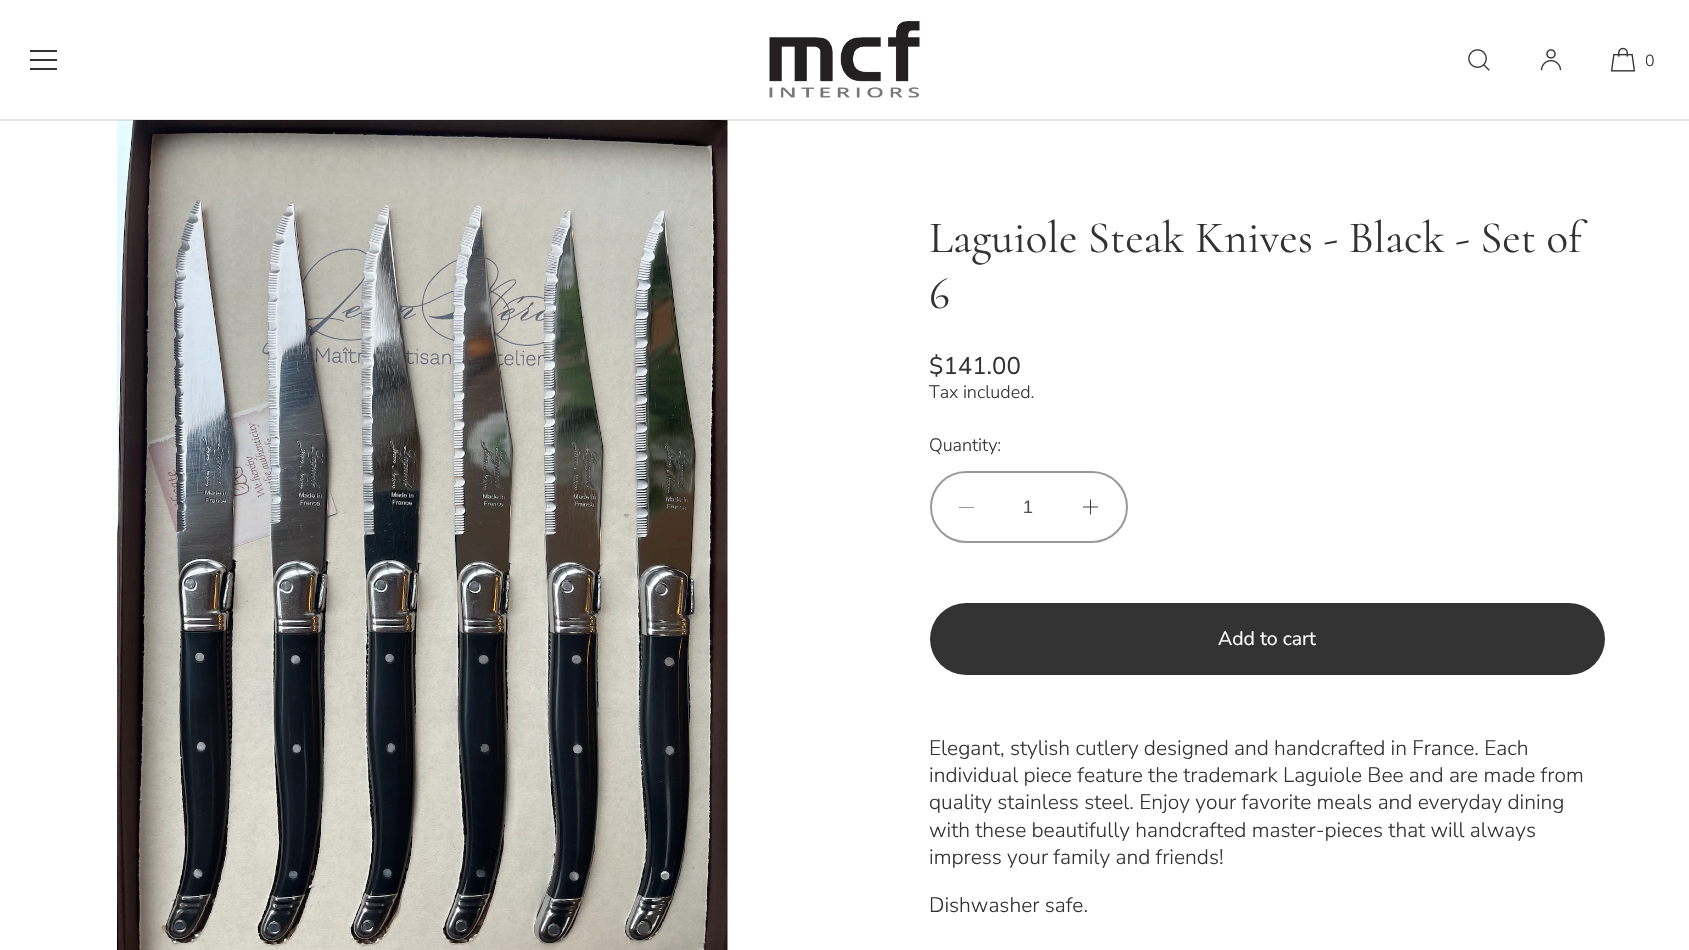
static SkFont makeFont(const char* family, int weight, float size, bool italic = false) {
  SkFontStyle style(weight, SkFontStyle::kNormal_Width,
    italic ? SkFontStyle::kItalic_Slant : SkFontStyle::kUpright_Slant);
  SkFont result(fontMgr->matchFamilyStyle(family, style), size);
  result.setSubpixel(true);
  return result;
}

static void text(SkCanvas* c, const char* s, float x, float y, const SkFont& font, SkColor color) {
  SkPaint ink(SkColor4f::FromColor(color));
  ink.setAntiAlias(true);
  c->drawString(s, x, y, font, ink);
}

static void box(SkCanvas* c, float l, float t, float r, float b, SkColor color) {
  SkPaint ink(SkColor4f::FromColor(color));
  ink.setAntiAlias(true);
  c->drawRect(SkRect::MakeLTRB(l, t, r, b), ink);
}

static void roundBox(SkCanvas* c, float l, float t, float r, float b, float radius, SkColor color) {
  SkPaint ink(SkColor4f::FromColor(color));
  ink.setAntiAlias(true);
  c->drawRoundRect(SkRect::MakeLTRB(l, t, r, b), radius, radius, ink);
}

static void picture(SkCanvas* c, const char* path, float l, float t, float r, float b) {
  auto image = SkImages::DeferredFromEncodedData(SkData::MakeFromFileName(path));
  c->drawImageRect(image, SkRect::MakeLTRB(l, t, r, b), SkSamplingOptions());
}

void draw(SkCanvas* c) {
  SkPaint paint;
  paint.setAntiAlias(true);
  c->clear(0xffffffff);
  picture(c, "img_05.png", 117, 120, 728, 950);
  box(c, 0, 119, 1689, 121, 0x1a000000);
  box(c, 30, 50, 57, 52, 0xff333333);
  box(c, 30, 59, 57, 61, 0xff333333);
  box(c, 30, 68, 57, 70, 0xff333333);
  picture(c, "img_01.png", 769, 21, 920, 98);
  picture(c, "img_02.png", 1468, 49, 1490, 71);
  picture(c, "img_03.png", 1540, 49, 1562, 71);
  picture(c, "img_04.png", 1610, 47, 1636, 72);
  SkFont face1 = makeFont("Nunito Sans", 300, 16);
  text(c, "0", 1645, 66, face1, 0xff333333);
  SkFont face2 = makeFont("Cormorant", 400, 45);
  text(c, "Laguiole Steak Knives - Black - Set of", 929, 252, face2, 0xff333333);
  text(c, "6", 929, 308, face2, 0xff333333);
  SkFont face3 = makeFont("Nunito Sans", 400, 24);
  text(c, "$141.00", 929, 374, face3, 0xff333333);
  SkFont face4 = makeFont("Nunito Sans", 300, 18);
  text(c, "Tax included.", 929, 398, face4, 0xff333333);
  text(c, "Quantity:", 929, 451, face4, 0xff333333);
  paint.setStyle(SkPaint::kStroke_Style);
  paint.setStrokeWidth(2);
  paint.setColor(0xff999999);
  c->drawRoundRect(SkRect::MakeLTRB(931, 472, 1127, 542), 35, 35, paint);
  box(c, 959, 507, 974, 508, 0xff999999);
  SkFont face5 = makeFont("Liberation Sans", 400, 18);
  text(c, "1", 1023, 513, face5, 0xff525252);
  picture(c, "img_06.png", 1083, 499, 1098, 515);
  roundBox(c, 930, 603, 1605, 675, 36, 0xff333333);
  SkFont face6 = makeFont("Nunito Sans", 400, 19.5f);
  text(c, "Add to cart", 1218, 645, face6, 0xffffffff);
  SkFont face7 = makeFont("Nunito Sans", 300, 21);
  text(c, "Elegant, stylish cutlery designed and handcrafted in France. Each", 929, 755, face7, 0xff333333);
  text(c, "individual piece feature the trademark Laguiole Bee and are made from", 929, 782, face7, 0xff333333);
  text(c, "quality stainless steel. Enjoy your favorite meals and everyday dining", 929, 809, face7, 0xff333333);
  text(c, "with these beautifully handcrafted master-pieces that will always", 929, 837, face7, 0xff333333);
  text(c, "impress your family and friends!", 929, 864, face7, 0xff333333);
  text(c, "Dishwasher safe.", 929, 912, face7, 0xff333333);
}
